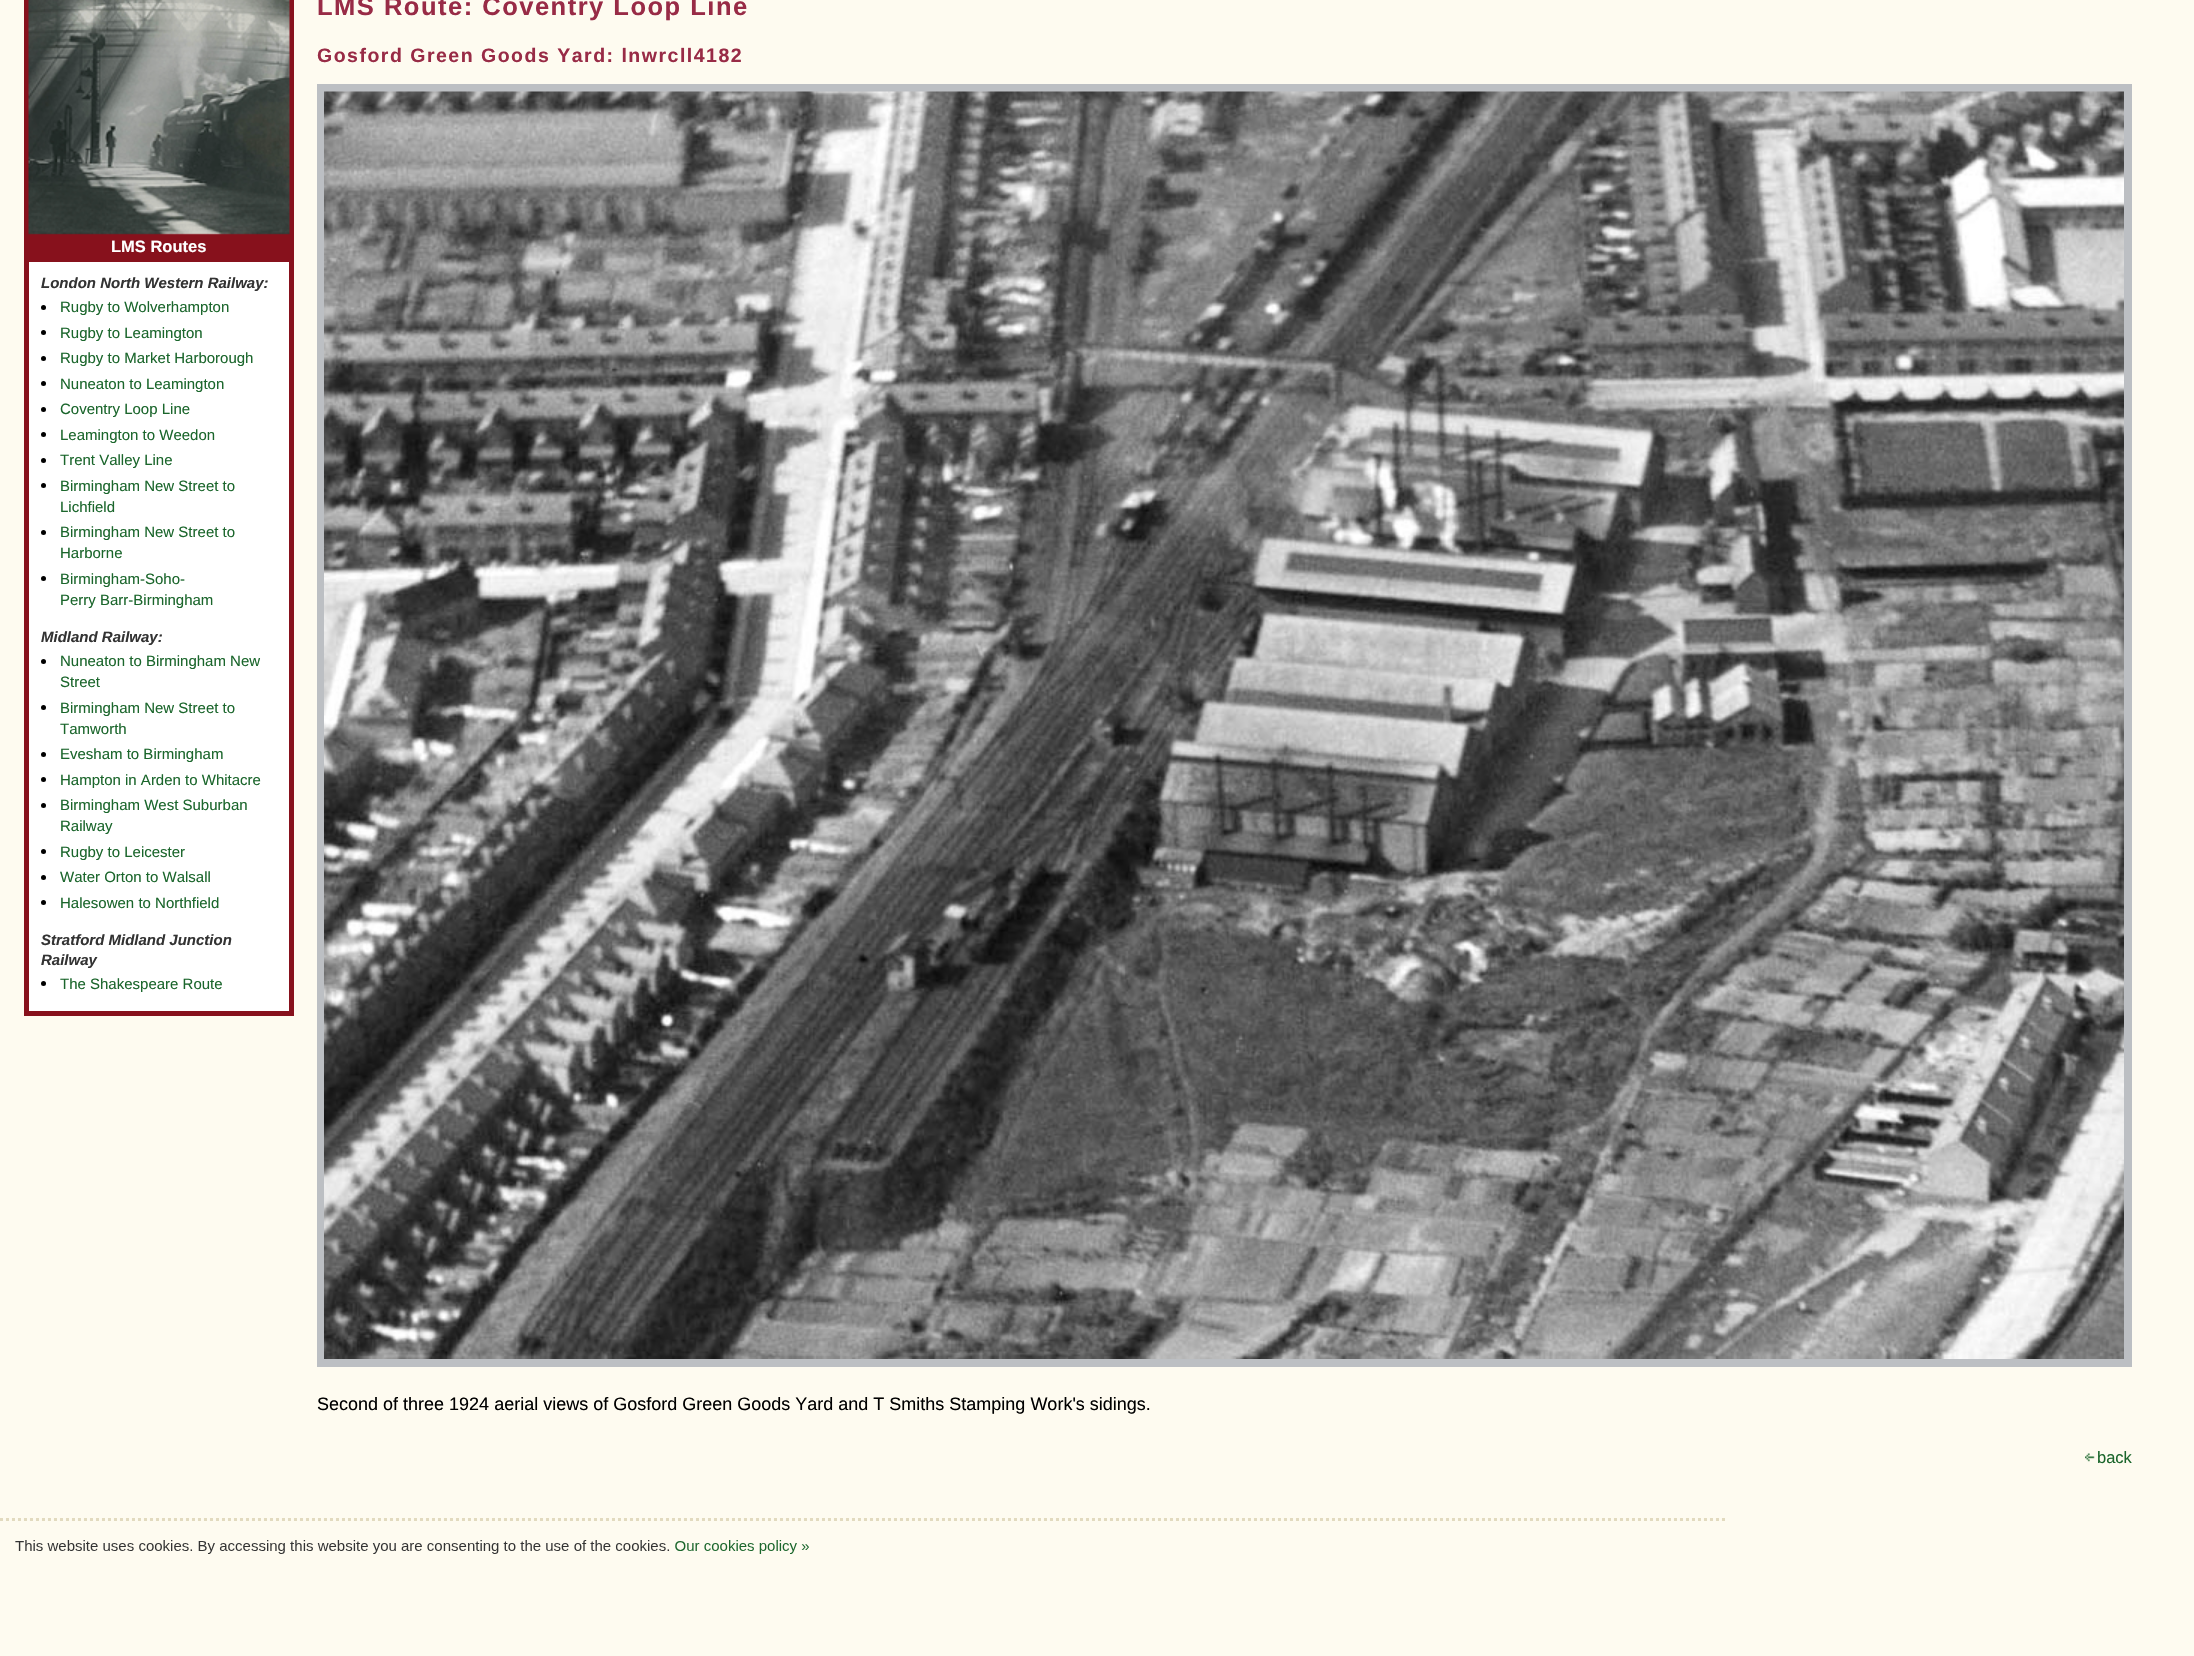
static SkFont makeFont(const char* family, int weight, float size, bool italic = false) {
  SkFontStyle style(weight, SkFontStyle::kNormal_Width,
    italic ? SkFontStyle::kItalic_Slant : SkFontStyle::kUpright_Slant);
  SkFont result(fontMgr->matchFamilyStyle(family, style), size);
  result.setSubpixel(true);
  return result;
}

static void text(SkCanvas* c, const char* s, float x, float y, const SkFont& font, SkColor color) {
  SkPaint ink(SkColor4f::FromColor(color));
  ink.setAntiAlias(true);
  c->drawString(s, x, y, font, ink);
}

static void spacedText(SkCanvas* c, const char* s, float x, float y, const SkFont& font, const SkPaint& ink, float letter, float word) {
  std::vector<SkGlyphID> glyphs(font.countText(s, strlen(s), SkTextEncoding::kUTF8));
  std::vector<float> xs(glyphs.size());
  font.textToGlyphs(s, strlen(s), SkTextEncoding::kUTF8, glyphs);
  font.getXPos(glyphs, xs, x);
  float extra = 0;
  for (size_t i = 0; i < glyphs.size(); i++) {
    xs[i] += extra;
    extra += letter + word * (glyphs[i] == font.unicharToGlyph(' '));
  }
  c->drawTextBlob(SkTextBlob::MakeFromPosHGlyphs(glyphs, xs, y, font), 0, 0, ink);
}

static void box(SkCanvas* c, float l, float t, float r, float b, SkColor color) {
  SkPaint ink(SkColor4f::FromColor(color));
  ink.setAntiAlias(true);
  c->drawRect(SkRect::MakeLTRB(l, t, r, b), ink);
}

static void picture(SkCanvas* c, const char* path, float l, float t, float r, float b) {
  auto image = SkImages::DeferredFromEncodedData(SkData::MakeFromFileName(path));
  c->drawImageRect(image, SkRect::MakeLTRB(l, t, r, b), SkSamplingOptions());
}

void draw(SkCanvas* c) {
  SkPaint paint;
  paint.setAntiAlias(true);
  c->clear(0xfffefbf0);
  box(c, 24, 0, 294, 257, 0xff87111c);
  picture(c, "img_01.png", 28, 0, 290, 235);
  SkFont face1 = makeFont("Liberation Sans", 700, 16.5f);
  text(c, "LMS Routes", 111, 252, face1, 0xffffffff);
  paint.setColor(0xffffffff);
  c->drawRect(SkRect::MakeLTRB(26.5f, 259.5f, 291.5f, 1013.5f), paint);
  paint.setStyle(SkPaint::kStroke_Style);
  paint.setStrokeWidth(5);
  paint.setColor(0xff87111c);
  c->drawRect(SkRect::MakeLTRB(26.5f, 259.5f, 291.5f, 1013.5f), paint);
  SkFont face2 = makeFont("Liberation Sans", 700, 15, true);
  text(c, "London North Western Railway:", 41, 288, face2, 0xff333333);
  paint.setStyle(SkPaint::kFill_Style);
  paint.setColor(0xff000000);
  c->drawCircle(43.5f, 307.5f, 2.5f, paint);
  SkFont face3 = makeFont("Liberation Sans", 400, 15);
  text(c, "Rugby to Wolverhampton", 60, 312, face3, 0xff1b662c);
  c->drawCircle(43.5f, 332.5f, 2.5f, paint);
  text(c, "Rugby to Leamington", 60, 338, face3, 0xff1b662c);
  c->drawCircle(43.5f, 358.5f, 2.5f, paint);
  text(c, "Rugby to Market Harborough", 60, 363, face3, 0xff1b662c);
  c->drawCircle(43.5f, 383.5f, 2.5f, paint);
  text(c, "Nuneaton to Leamington", 60, 389, face3, 0xff1b662c);
  c->drawCircle(43.5f, 409.5f, 2.5f, paint);
  text(c, "Coventry Loop Line", 60, 414, face3, 0xff1b662c);
  c->drawCircle(43.5f, 434.5f, 2.5f, paint);
  text(c, "Leamington to Weedon", 60, 440, face3, 0xff1b662c);
  c->drawCircle(43.5f, 460.5f, 2.5f, paint);
  text(c, "Trent Valley Line", 60, 465, face3, 0xff1b662c);
  c->drawCircle(43.5f, 485.5f, 2.5f, paint);
  text(c, "Birmingham New Street to", 60, 491, face3, 0xff1b662c);
  text(c, "Lichfield", 60, 512, face3, 0xff1b662c);
  c->drawCircle(43.5f, 532.5f, 2.5f, paint);
  text(c, "Birmingham New Street to", 60, 537, face3, 0xff1b662c);
  text(c, "Harborne", 60, 558, face3, 0xff1b662c);
  c->drawCircle(43.5f, 578.5f, 2.5f, paint);
  text(c, "Birmingham-Soho-", 60, 584, face3, 0xff1b662c);
  text(c, "Perry Barr-Birmingham", 60, 605, face3, 0xff1b662c);
  text(c, "Midland Railway:", 41, 642, face2, 0xff333333);
  c->drawCircle(43.5f, 661.5f, 2.5f, paint);
  text(c, "Nuneaton to Birmingham New", 60, 666, face3, 0xff1b662c);
  text(c, "Street", 60, 687, face3, 0xff1b662c);
  c->drawCircle(43.5f, 707.5f, 2.5f, paint);
  text(c, "Birmingham New Street to", 60, 713, face3, 0xff1b662c);
  text(c, "Tamworth", 60, 734, face3, 0xff1b662c);
  c->drawCircle(43.5f, 754.5f, 2.5f, paint);
  text(c, "Evesham to Birmingham", 60, 759, face3, 0xff1b662c);
  c->drawCircle(43.5f, 779.5f, 2.5f, paint);
  text(c, "Hampton in Arden to Whitacre", 60, 785, face3, 0xff1b662c);
  c->drawCircle(43.5f, 805.5f, 2.5f, paint);
  text(c, "Birmingham West Suburban", 60, 810, face3, 0xff1b662c);
  text(c, "Railway", 60, 831, face3, 0xff1b662c);
  c->drawCircle(43.5f, 851.5f, 2.5f, paint);
  text(c, "Rugby to Leicester", 60, 857, face3, 0xff1b662c);
  c->drawCircle(43.5f, 877.5f, 2.5f, paint);
  text(c, "Water Orton to Walsall", 60, 882, face3, 0xff1b662c);
  c->drawCircle(43.5f, 902.5f, 2.5f, paint);
  text(c, "Halesowen to Northfield", 60, 908, face3, 0xff1b662c);
  text(c, "Stratford Midland Junction", 41, 945, face2, 0xff333333);
  text(c, "Railway", 41, 965, face2, 0xff333333);
  c->drawCircle(43.5f, 983.5f, 2.5f, paint);
  text(c, "The Shakespeare Route", 60, 989, face3, 0xff1b662c);
  SkFont face4 = makeFont("Liberation Sans", 700, 25.5f);
  paint.setColor(0xff982b46);
  spacedText(c, "LMS Route: Coventry Loop Line", 317, 15, face4, paint, 1.5f, 0);
  SkFont face5 = makeFont("Liberation Sans", 700, 19.5f);
  spacedText(c, "Gosford Green Goods Yard: lnwrcll4182", 317, 62, face5, paint, 1.5f, 0);
  box(c, 317, 84, 2132, 1367, 0xffbcbfc3);
  picture(c, "img_02.png", 324, 91, 2124, 1359);
  SkFont face6 = makeFont("Liberation Sans", 400, 18);
  text(c, "Second of three 1924 aerial views of Gosford Green Goods Yard and T Smiths Stamping Work's sidings.", 317, 1410, face6, 0xff000000);
  picture(c, "img_03.png", 2085, 1453, 2095, 1462);
  SkFont face7 = makeFont("Liberation Sans", 400, 16.5f);
  text(c, "back", 2097, 1463, face7, 0xff1b662c);
  paint.setStyle(SkPaint::kStroke_Style);
  paint.setStrokeWidth(3);
  paint.setColor(0xffe2dabf);
  paint.setPathEffect(SkDashPathEffect::Make({{3, 3}}, 0));
  c->drawPath(SkPathBuilder().moveTo(0, 1519.5f).lineTo(1725, 1519.5f).detach(), paint);
  paint.setPathEffect(nullptr);
  picture(c, "img_04.png", 15, 1540, 809, 1554);
}
